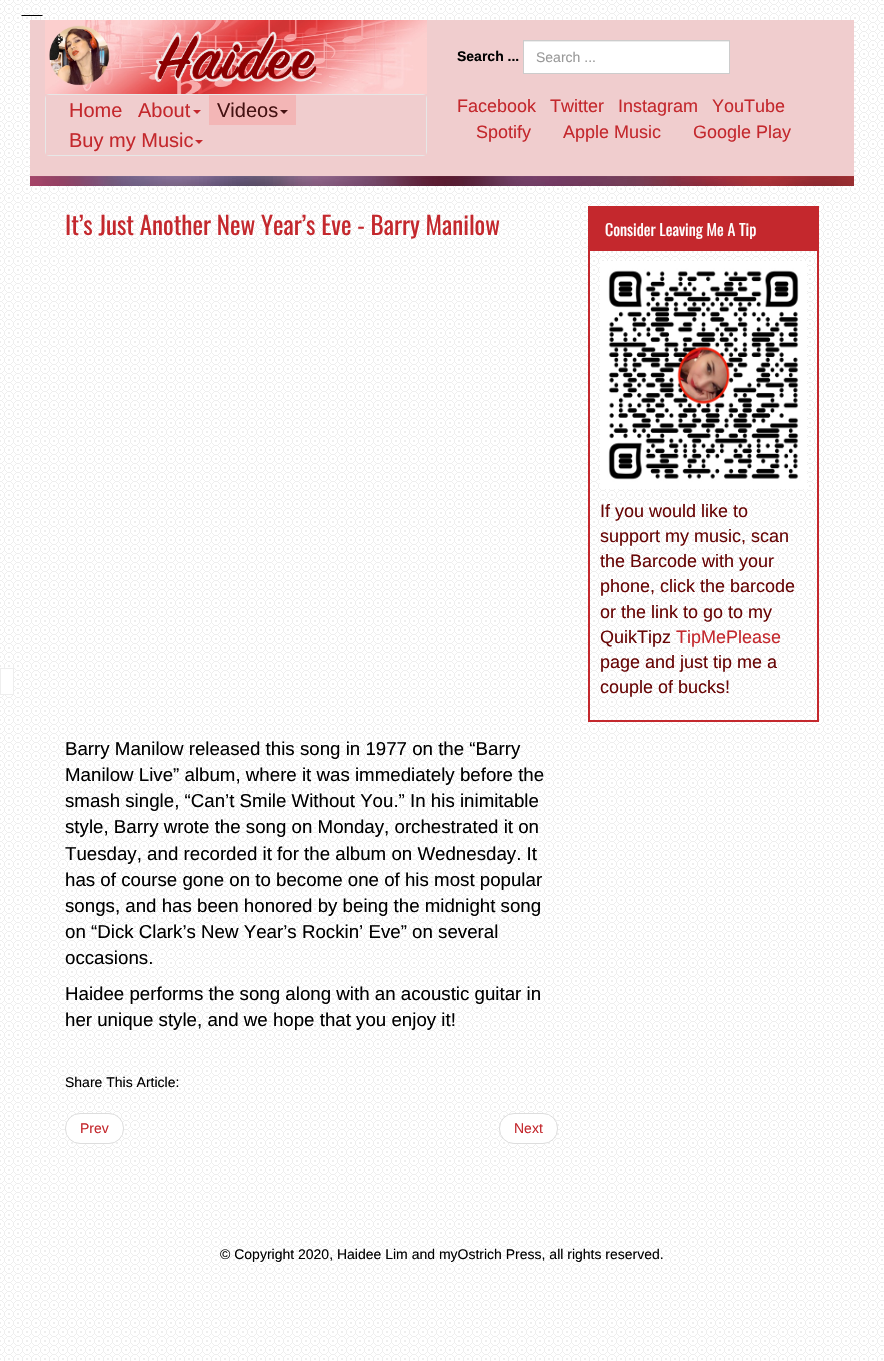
static SkFont makeFont(const char* family, int weight, float size, bool italic = false) {
  SkFontStyle style(weight, SkFontStyle::kNormal_Width,
    italic ? SkFontStyle::kItalic_Slant : SkFontStyle::kUpright_Slant);
  SkFont result(fontMgr->matchFamilyStyle(family, style), size);
  result.setSubpixel(true);
  return result;
}

static void text(SkCanvas* c, const char* s, float x, float y, const SkFont& font, SkColor color) {
  SkPaint ink(SkColor4f::FromColor(color));
  ink.setAntiAlias(true);
  c->drawString(s, x, y, font, ink);
}

static void box(SkCanvas* c, float l, float t, float r, float b, SkColor color) {
  SkPaint ink(SkColor4f::FromColor(color));
  ink.setAntiAlias(true);
  c->drawRect(SkRect::MakeLTRB(l, t, r, b), ink);
}

static void picture(SkCanvas* c, const char* path, float l, float t, float r, float b) {
  auto image = SkImages::DeferredFromEncodedData(SkData::MakeFromFileName(path));
  c->drawImageRect(image, SkRect::MakeLTRB(l, t, r, b), SkSamplingOptions());
}

void draw(SkCanvas* c) {
  SkPaint paint;
  paint.setAntiAlias(true);
  c->clear(0xffffffff);
  picture(c, "img_01.png", 0, 0, 884, 1361);
  paint.setColor(0xff000000);
  c->drawPath(SkPathBuilder().moveTo(43, 16).lineTo(21, 16).lineTo(22, 15).lineTo(42, 15).close().detach(), paint);
  paint.setColor(0xffffffff);
  c->drawRect(SkRect::MakeLTRB(0.5f, 668.5f, 13.5f, 694.5f), paint);
  paint.setStyle(SkPaint::kStroke_Style);
  paint.setStrokeWidth(1);
  paint.setColor(0xffeeeeee);
  c->drawRect(SkRect::MakeLTRB(0.5f, 668.5f, 13.5f, 694.5f), paint);
  box(c, 30, 20, 854, 176, 0xfff0cdce);
  picture(c, "img_02.png", 45, 20, 427, 94);
  SkFont face1 = makeFont("Liberation Sans", 700, 14);
  text(c, "Search ...", 457, 61, face1, 0xff000000);
  box(c, 524, 42, 729, 73, 0xffffffff);
  box(c, 524, 41, 729, 42, 0xffececec);
  paint.setColor(0xffcccccc);
  c->drawRect(SkRect::MakeLTRB(523.5f, 40.5f, 729.5f, 73.5f), paint);
  SkFont face2 = makeFont("Liberation Sans", 400, 14);
  text(c, "Search ...", 536, 62, face2, 0xff999999);
  paint.setColor(0xffe7e7e7);
  c->drawRoundRect(SkRect::MakeLTRB(45.5f, 94.5f, 426.5f, 155.5f), 3.5f, 3.5f, paint);
  box(c, 46, 95, 426, 155, 0xfff0cdce);
  SkFont face3 = makeFont("Liberation Sans", 400, 20);
  text(c, "Home", 69, 117, face3, 0xffc4282d);
  text(c, "About", 138, 117, face3, 0xffc4282d);
  paint.setStyle(SkPaint::kFill_Style);
  paint.setColor(0xffc4282d);
  c->drawPath(SkPathBuilder().moveTo(193, 110).lineTo(201, 110).lineTo(197, 114).close().detach(), paint);
  box(c, 209, 95, 296, 125, 0xfff3b6b6);
  text(c, "Videos", 217, 117, face3, 0xff451212);
  paint.setColor(0xff451212);
  c->drawPath(SkPathBuilder().moveTo(280, 110).lineTo(288, 110).lineTo(284, 114).close().detach(), paint);
  text(c, "Buy my Music", 69, 147, face3, 0xffc4282d);
  paint.setColor(0xffc4282d);
  c->drawPath(SkPathBuilder().moveTo(195, 140).lineTo(203, 140).lineTo(199, 144).close().detach(), paint);
  SkFont face4 = makeFont("Liberation Sans", 400, 18);
  text(c, "Facebook", 457, 112, face4, 0xffc4282d);
  text(c, "Twitter", 550, 112, face4, 0xffc4282d);
  text(c, "Instagram", 618, 112, face4, 0xffc4282d);
  text(c, "YouTube", 712, 112, face4, 0xffc4282d);
  text(c, "Spotify", 476, 138, face4, 0xffc4282d);
  text(c, "Apple Music", 563, 138, face4, 0xffc4282d);
  text(c, "Google Play", 693, 138, face4, 0xffc4282d);
  picture(c, "img_03.png", 30, 176, 854, 186);
  SkFont face5 = makeFont("Oswald", 400, 25);
  text(c, "It’s Just Another New Year’s Eve - Barry Manilow", 65, 235, face5, 0xffc4282d);
  SkFont face6 = makeFont("Liberation Sans", 400, 18.7f);
  text(c, "Barry Manilow released this song in 1977 on the “Barry", 65, 755, face6, 0xff000000);
  text(c, "Manilow Live” album, where it was immediately before the", 65, 781, face6, 0xff000000);
  text(c, "smash single, “Can’t Smile Without You.” In his inimitable", 65, 807, face6, 0xff000000);
  text(c, "style, Barry wrote the song on Monday, orchestrated it on", 65, 833, face6, 0xff000000);
  text(c, "Tuesday, and recorded it for the album on Wednesday. It", 65, 860, face6, 0xff000000);
  text(c, "has of course gone on to become one of his most popular", 65, 886, face6, 0xff000000);
  text(c, "songs, and has been honored by being the midnight song", 65, 912, face6, 0xff000000);
  text(c, "on “Dick Clark’s New Year’s Rockin’ Eve” on several", 65, 938, face6, 0xff000000);
  text(c, "occasions.", 65, 964, face6, 0xff000000);
  text(c, "Haidee performs the song along with an acoustic guitar in", 65, 1000, face6, 0xff000000);
  text(c, "her unique style, and we hope that you enjoy it!", 65, 1026, face6, 0xff000000);
  text(c, "Share This Article:", 65, 1087, face2, 0xff000000);
  paint.setColor(0xffffffff);
  c->drawRoundRect(SkRect::MakeLTRB(65.5f, 1113.5f, 123.5f, 1143.5f), 14.5f, 14.5f, paint);
  paint.setStyle(SkPaint::kStroke_Style);
  paint.setColor(0xffdddddd);
  c->drawRoundRect(SkRect::MakeLTRB(65.5f, 1113.5f, 123.5f, 1143.5f), 14.5f, 14.5f, paint);
  text(c, "Prev", 80, 1133, face2, 0xffc4282d);
  paint.setStyle(SkPaint::kFill_Style);
  paint.setColor(0xffffffff);
  c->drawRoundRect(SkRect::MakeLTRB(499.5f, 1113.5f, 557.5f, 1143.5f), 14.5f, 14.5f, paint);
  paint.setStyle(SkPaint::kStroke_Style);
  paint.setColor(0xffdddddd);
  c->drawRoundRect(SkRect::MakeLTRB(499.5f, 1113.5f, 557.5f, 1143.5f), 14.5f, 14.5f, paint);
  text(c, "Next", 514, 1133, face2, 0xffc4282d);
  paint.setStrokeWidth(2);
  paint.setColor(0xffc4282d);
  c->drawRect(SkRect::MakeLTRB(589, 207, 818, 721), paint);
  box(c, 590, 208, 817, 251, 0xffc4282d);
  SkFont face7 = makeFont("Oswald", 400, 16);
  text(c, "Consider Leaving Me A Tip", 605, 236, face7, 0xffffffff);
  picture(c, "img_04.png", 600, 261, 807, 489);
  text(c, "If you would like to", 600, 517, face4, 0xff680606);
  text(c, "support my music, scan", 600, 542, face4, 0xff680606);
  text(c, "the Barcode with your", 600, 567, face4, 0xff680606);
  text(c, "phone, click the barcode", 600, 592, face4, 0xff680606);
  text(c, "or the link to go to my", 600, 618, face4, 0xff680606);
  text(c, "QuikTipz", 600, 643, face4, 0xff680606);
  text(c, "TipMePlease", 676, 643, face4, 0xffc4282d);
  text(c, "page and just tip me a", 600, 668, face4, 0xff680606);
  text(c, "couple of bucks!", 600, 693, face4, 0xff680606);
  text(c, "© Copyright 2020, Haidee Lim and myOstrich Press, all rights reserved.", 220, 1259, face2, 0xff000000);
}
